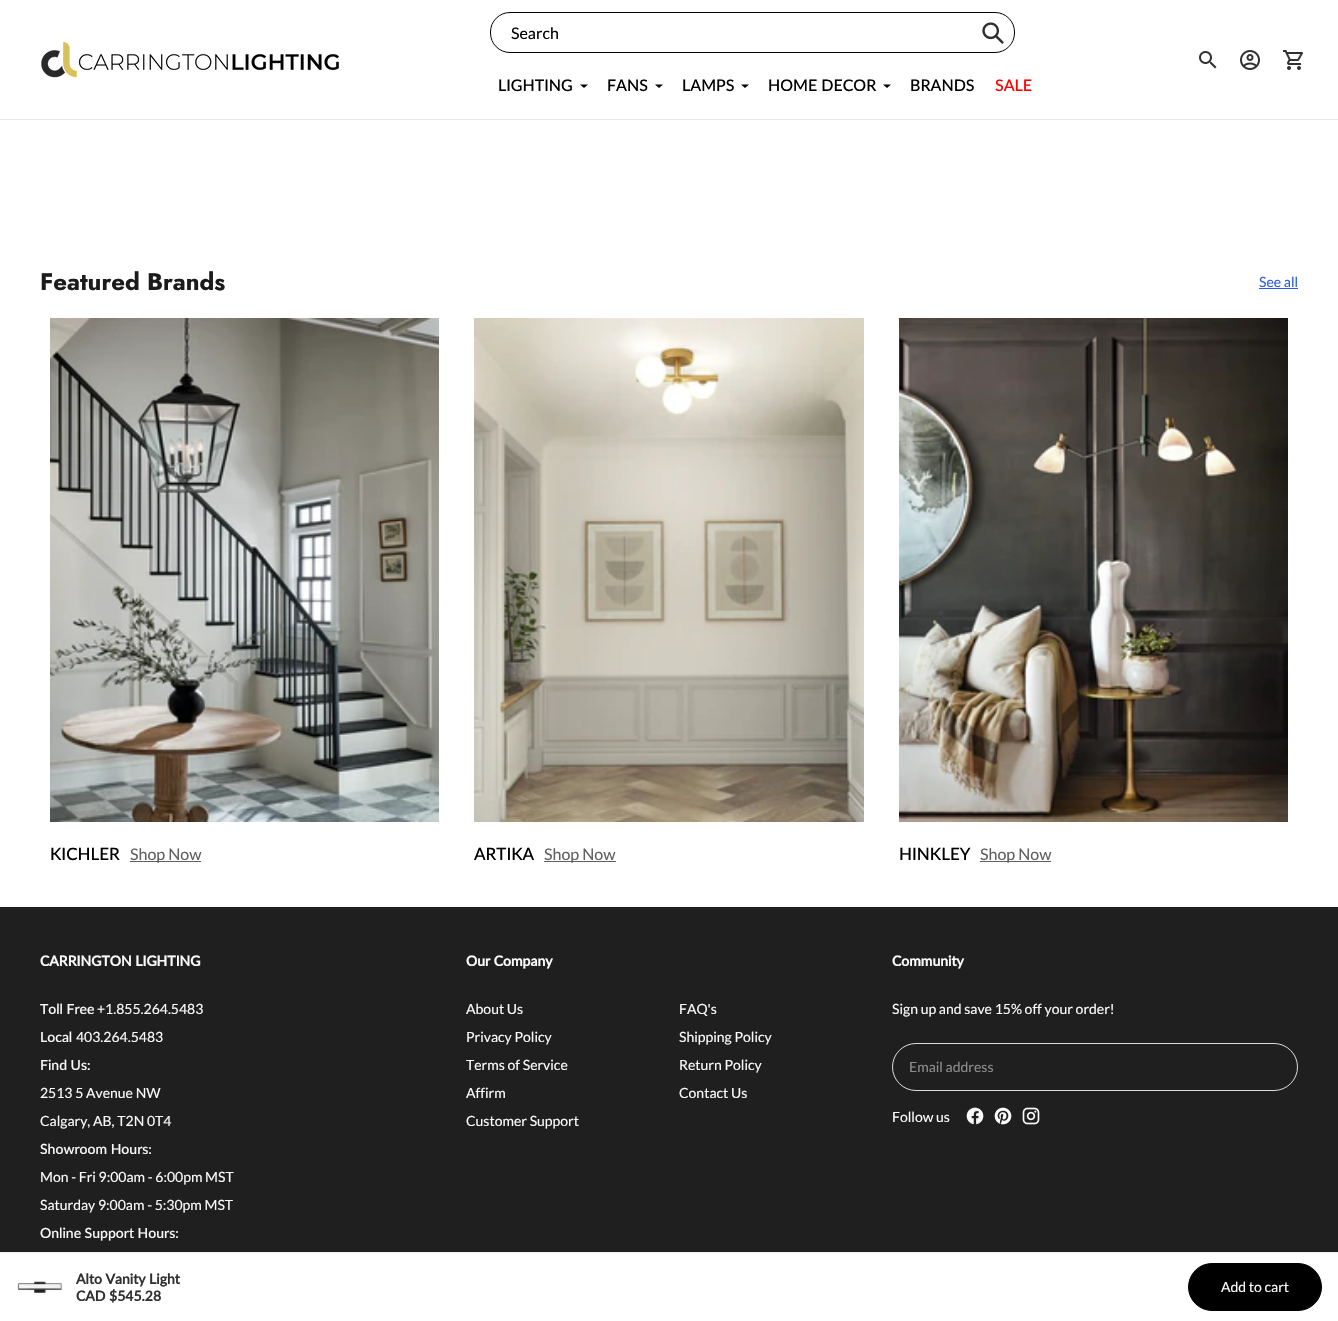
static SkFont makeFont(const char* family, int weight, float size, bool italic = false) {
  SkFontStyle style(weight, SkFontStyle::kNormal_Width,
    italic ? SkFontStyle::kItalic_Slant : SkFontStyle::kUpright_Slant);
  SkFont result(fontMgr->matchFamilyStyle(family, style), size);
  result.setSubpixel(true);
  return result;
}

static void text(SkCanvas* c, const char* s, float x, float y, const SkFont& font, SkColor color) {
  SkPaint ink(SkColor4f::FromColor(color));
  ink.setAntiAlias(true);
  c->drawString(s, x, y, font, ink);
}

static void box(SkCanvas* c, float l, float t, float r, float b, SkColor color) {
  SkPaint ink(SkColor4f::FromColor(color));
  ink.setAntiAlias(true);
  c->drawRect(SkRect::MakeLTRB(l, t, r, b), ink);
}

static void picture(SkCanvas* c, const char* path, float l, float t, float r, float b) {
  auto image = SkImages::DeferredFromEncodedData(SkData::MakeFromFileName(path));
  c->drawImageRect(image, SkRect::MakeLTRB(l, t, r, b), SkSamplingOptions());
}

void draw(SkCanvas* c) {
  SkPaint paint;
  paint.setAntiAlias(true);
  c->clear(0xffffffff);
  box(c, 0, 119, 1338, 120, 0xffeaeaea);
  picture(c, "img_01.png", 41, 41, 339, 78);
  paint.setStyle(SkPaint::kStroke_Style);
  paint.setStrokeWidth(1);
  paint.setColor(0xff000000);
  c->drawRoundRect(SkRect::MakeLTRB(490.5f, 12.5f, 1014.5f, 52.5f), 19.5f, 19.5f, paint);
  SkFont face1 = makeFont("Lato", 400, 16);
  text(c, "Search", 511, 39, face1, 0xff000000);
  picture(c, "img_02.png", 982, 22, 1004, 44);
  SkFont face2 = makeFont("Lato", 500, 16);
  text(c, "LIGHTING", 498, 91, face2, 0xff000000);
  paint.setStyle(SkPaint::kFill_Style);
  c->drawPath(SkPathBuilder().moveTo(580, 84.5f).lineTo(584, 88).lineTo(588, 84.5f).close().detach(), paint);
  text(c, "FANS", 607, 91, face2, 0xff000000);
  c->drawPath(SkPathBuilder().moveTo(655, 84.5f).lineTo(659, 88).lineTo(663, 84.5f).close().detach(), paint);
  text(c, "LAMPS", 682, 91, face2, 0xff000000);
  c->drawPath(SkPathBuilder().moveTo(741, 84.5f).lineTo(745, 88).lineTo(749, 84.5f).close().detach(), paint);
  text(c, "HOME DECOR", 768, 91, face2, 0xff000000);
  c->drawPath(SkPathBuilder().moveTo(883, 84.5f).lineTo(887, 88).lineTo(891, 84.5f).close().detach(), paint);
  text(c, "BRANDS", 910, 91, face2, 0xff000000);
  text(c, "SALE", 995, 91, face2, 0xffff0000);
  picture(c, "img_03.png", 1199, 51, 1217, 69);
  picture(c, "img_04.png", 1240, 50, 1260, 70);
  picture(c, "img_05.png", 1283, 50, 1303, 70);
  SkFont face3 = makeFont("Jost", 700, 24);
  text(c, "Featured Brands", 40, 290, face3, 0xff1b1b1b);
  SkFont face4 = makeFont("Lato", 400, 14);
  text(c, "See all", 1259, 287, face4, 0xff2a5ddf);
  box(c, 1259, 288, 1298, 289, 0xff2a5ddf);
  picture(c, "img_06.png", 50, 318, 439, 822);
  SkFont face5 = makeFont("Lato", 500, 17);
  text(c, "KICHLER", 50, 860, face5, 0xff000000);
  box(c, 130, 861, 201, 862, 0xff5f5f5f);
  text(c, "Shop Now", 130, 860, face1, 0xff5f5f5f);
  picture(c, "img_07.png", 474, 318, 864, 822);
  text(c, "ARTIKA", 474, 860, face5, 0xff000000);
  box(c, 544, 861, 616, 862, 0xff5f5f5f);
  text(c, "Shop Now", 544, 860, face1, 0xff5f5f5f);
  picture(c, "img_08.png", 899, 318, 1288, 822);
  text(c, "HINKLEY", 899, 860, face5, 0xff000000);
  box(c, 980, 861, 1051, 862, 0xff5f5f5f);
  text(c, "Shop Now", 980, 860, face1, 0xff5f5f5f);
  box(c, 0, 907, 1338, 1252, 0xff1f1f1f);
  SkFont face6 = makeFont("Lato", 700, 14);
  text(c, "CARRINGTON LIGHTING", 40, 966, face6, 0xfffafafa);
  SkFont face7 = makeFont("Lato", 500, 14);
  text(c, "Toll Free", 40, 1014, face7, 0xfffafafa);
  text(c, "+1.855.264.5483", 97, 1014, face4, 0xfffafafa);
  text(c, "Local", 40, 1042, face7, 0xfffafafa);
  text(c, "403.264.5483", 76, 1042, face4, 0xfffafafa);
  text(c, "Find Us:", 40, 1070, face7, 0xfffafafa);
  text(c, "2513 5 Avenue NW", 40, 1098, face4, 0xfffafafa);
  text(c, "Calgary, AB, T2N 0T4", 40, 1126, face4, 0xfffafafa);
  text(c, "Showroom Hours:", 40, 1154, face7, 0xfffafafa);
  text(c, "Mon - Fri 9:00am - 6:00pm MST", 40, 1182, face4, 0xfffafafa);
  text(c, "Saturday 9:00am - 5:30pm MST", 40, 1210, face4, 0xfffafafa);
  text(c, "Online Support Hours:", 40, 1238, face7, 0xfffafafa);
  text(c, "Our Company", 466, 966, face6, 0xfffafafa);
  text(c, "About Us", 466, 1014, face4, 0xfffafafa);
  text(c, "FAQ's", 679, 1014, face4, 0xfffafafa);
  text(c, "Privacy Policy", 466, 1042, face4, 0xfffafafa);
  text(c, "Shipping Policy", 679, 1042, face4, 0xfffafafa);
  text(c, "Terms of Service", 466, 1070, face4, 0xfffafafa);
  text(c, "Return Policy", 679, 1070, face4, 0xfffafafa);
  text(c, "Affirm", 466, 1098, face4, 0xfffafafa);
  text(c, "Contact Us", 679, 1098, face4, 0xfffafafa);
  text(c, "Customer Support", 466, 1126, face4, 0xfffafafa);
  text(c, "Community", 892, 966, face6, 0xfffafafa);
  text(c, "Sign up and save 15% off your order!", 892, 1014, face4, 0xfffafafa);
  paint.setStyle(SkPaint::kStroke_Style);
  paint.setColor(0xffdcdcdc);
  c->drawRoundRect(SkRect::MakeLTRB(892.5f, 1043.5f, 1297.5f, 1090.5f), 23.5f, 23.5f, paint);
  text(c, "Email address", 909, 1072, face4, 0xff8d8d8d);
  text(c, "Follow us", 892, 1122, face4, 0xfffafafa);
  picture(c, "img_09.png", 966, 1107, 984, 1125);
  picture(c, "img_10.png", 994, 1107, 1012, 1125);
  picture(c, "img_11.png", 1022, 1107, 1040, 1125);
  box(c, 0, 1252, 1338, 1253, 0xffeeeeee);
  picture(c, "img_12.png", 17, 1281, 63, 1293);
  text(c, "Alto Vanity Light", 76, 1284, face6, 0xff313131);
  text(c, "CAD $545.28", 76, 1301, face6, 0xff313131);
  paint.setStyle(SkPaint::kFill_Style);
  paint.setColor(0xff000000);
  c->drawRoundRect(SkRect::MakeLTRB(1188.5f, 1263.5f, 1321.5f, 1310.5f), 23.5f, 23.5f, paint);
  paint.setStyle(SkPaint::kStroke_Style);
  c->drawRoundRect(SkRect::MakeLTRB(1188.5f, 1263.5f, 1321.5f, 1310.5f), 23.5f, 23.5f, paint);
  text(c, "Add to cart", 1221, 1292, face4, 0xfffafafa);
}
